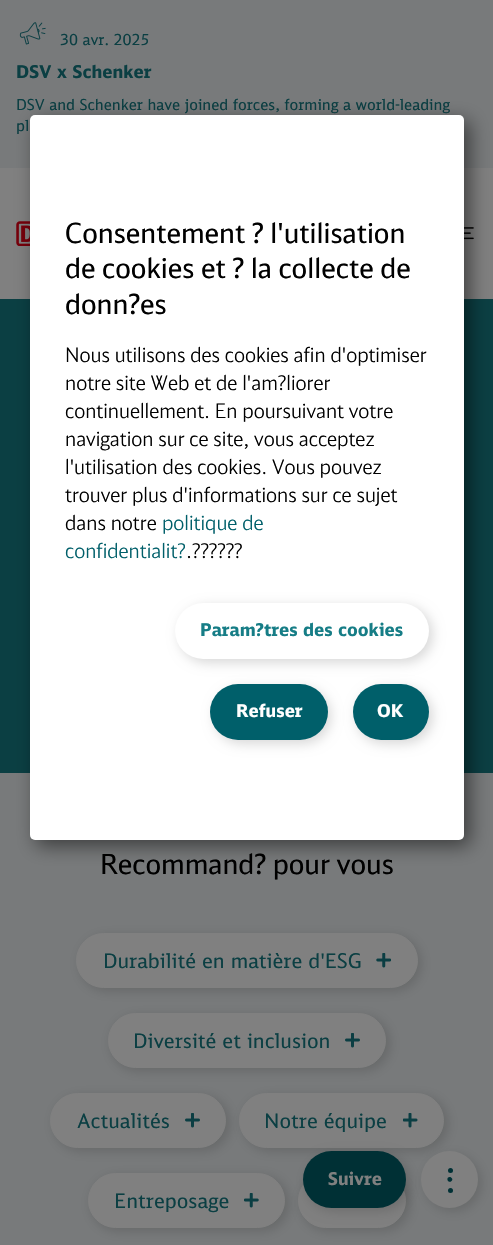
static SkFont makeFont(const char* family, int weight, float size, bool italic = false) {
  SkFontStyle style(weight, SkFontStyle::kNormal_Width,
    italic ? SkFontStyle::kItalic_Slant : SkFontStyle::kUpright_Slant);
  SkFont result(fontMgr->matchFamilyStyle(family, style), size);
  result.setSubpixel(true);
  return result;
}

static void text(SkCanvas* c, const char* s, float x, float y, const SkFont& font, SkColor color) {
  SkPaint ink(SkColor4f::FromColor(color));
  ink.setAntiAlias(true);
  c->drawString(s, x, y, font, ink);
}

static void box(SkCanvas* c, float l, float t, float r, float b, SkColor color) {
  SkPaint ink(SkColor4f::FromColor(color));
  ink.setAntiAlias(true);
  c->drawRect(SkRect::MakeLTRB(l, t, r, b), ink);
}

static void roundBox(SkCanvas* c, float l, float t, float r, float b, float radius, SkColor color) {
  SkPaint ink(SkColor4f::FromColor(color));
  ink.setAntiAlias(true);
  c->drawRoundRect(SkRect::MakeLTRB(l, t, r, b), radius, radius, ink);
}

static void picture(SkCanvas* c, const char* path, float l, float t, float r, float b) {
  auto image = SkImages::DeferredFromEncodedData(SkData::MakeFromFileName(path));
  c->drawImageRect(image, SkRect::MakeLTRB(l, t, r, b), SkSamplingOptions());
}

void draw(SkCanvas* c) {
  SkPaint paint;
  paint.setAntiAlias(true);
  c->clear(0xff808080);
  box(c, 0, 0, 493, 168, 0xff787a7b);
  picture(c, "img_01.png", 19, 22, 46, 45);
  SkFont face1 = makeFont("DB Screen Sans", 400, 15);
  text(c, "30 avr. 2025", 60, 45, face1, 0xff0b3f43);
  SkFont face2 = makeFont("DB Screen Sans", 700, 17.5f);
  text(c, "DSV x Schenker", 16, 78, face2, 0xff0b3f43);
  text(c, "DSV and Schenker have joined forces, forming a world-leading", 16, 110, face1, 0xff0b3f43);
  text(c, "pl", 16, 131, face1, 0xff0b3f43);
  picture(c, "img_02.png", 16, 221, 30, 246);
  picture(c, "img_03.png", 464, 227, 474, 240);
  box(c, 0, 299, 493, 773, 0xff0b3f43);
  box(c, 0, 773, 493, 1245, 0xff787a7b);
  paint.setColor(0x80000000);
  paint.setMaskFilter(SkMaskFilter::MakeBlur(kNormal_SkBlurStyle, 9.5f));
  c->drawRoundRect(SkRect::MakeLTRB(36, 121, 470, 846), 5, 5, paint);
  paint.setMaskFilter(nullptr);
  roundBox(c, 30, 115, 464, 840, 5, 0xffffffff);
  SkFont face3 = makeFont("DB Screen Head", 400, 27.5f);
  text(c, "Consentement ? l'utilisation", 65, 243, face3, 0xff000000);
  text(c, "de cookies et ? la collecte de", 65, 278, face3, 0xff000000);
  text(c, "donn?es", 65, 314, face3, 0xff000000);
  SkFont face4 = makeFont("DB Screen Head", 300, 20);
  text(c, "Nous utilisons des cookies afin d'optimiser", 65, 362, face4, 0xff000000);
  text(c, "notre site Web et de l'am?liorer", 65, 390, face4, 0xff000000);
  text(c, "continuellement. En poursuivant votre", 65, 418, face4, 0xff000000);
  text(c, "navigation sur ce site, vous acceptez", 65, 446, face4, 0xff000000);
  text(c, "l'utilisation des cookies. Vous pouvez", 65, 474, face4, 0xff000000);
  text(c, "trouver plus d'informations sur ce sujet", 65, 502, face4, 0xff000000);
  text(c, "dans notre", 65, 530, face4, 0xff000000);
  text(c, "politique de", 162, 530, face4, 0xff005f6a);
  text(c, "confidentialit?", 65, 558, face4, 0xff005f6a);
  text(c, ".?\077?\077?\077", 186, 558, face4, 0xff000000);
  paint.setColor(0x26000000);
  paint.setMaskFilter(SkMaskFilter::MakeBlur(kNormal_SkBlurStyle, 6));
  c->drawRoundRect(SkRect::MakeLTRB(179, 606, 433, 663), 28.5f, 28.5f, paint);
  paint.setMaskFilter(nullptr);
  roundBox(c, 175, 603, 429, 659, 28, 0xffffffff);
  text(c, "Param?tres des cookies", 200, 636, face2, 0xff167d86);
  paint.setMaskFilter(SkMaskFilter::MakeBlur(kNormal_SkBlurStyle, 6));
  c->drawRoundRect(SkRect::MakeLTRB(214, 688, 331, 744), 28, 28, paint);
  paint.setMaskFilter(nullptr);
  roundBox(c, 210, 684, 328, 740, 28, 0xff005f6a);
  text(c, "Refuser", 236, 717, face2, 0xffffffff);
  paint.setMaskFilter(SkMaskFilter::MakeBlur(kNormal_SkBlurStyle, 6));
  c->drawRoundRect(SkRect::MakeLTRB(356, 688, 433, 744), 28, 28, paint);
  paint.setMaskFilter(nullptr);
  roundBox(c, 353, 684, 429, 740, 28, 0xff005f6a);
  text(c, "OK", 377, 717, face2, 0xffffffff);
  text(c, "Recommand? pour vous", 100, 874, face3, 0xff000000);
  paint.setMaskFilter(SkMaskFilter::MakeBlur(kNormal_SkBlurStyle, 6));
  c->drawRoundRect(SkRect::MakeLTRB(80, 936, 421, 991), 27.5f, 27.5f, paint);
  paint.setMaskFilter(nullptr);
  paint.setColor(0xff808080);
  c->drawRoundRect(SkRect::MakeLTRB(76.5f, 933.5f, 417.5f, 987.5f), 27, 27, paint);
  paint.setStyle(SkPaint::kStroke_Style);
  paint.setStrokeWidth(1);
  c->drawRoundRect(SkRect::MakeLTRB(76.5f, 933.5f, 417.5f, 987.5f), 27, 27, paint);
  SkFont face5 = makeFont("DB Screen Sans", 400, 20);
  text(c, "Durabilité en matière d'ESG", 103, 968, face5, 0xff0b3f43);
  picture(c, "img_04.png", 376, 953, 391, 968);
  paint.setStyle(SkPaint::kFill_Style);
  paint.setColor(0x26000000);
  paint.setMaskFilter(SkMaskFilter::MakeBlur(kNormal_SkBlurStyle, 6));
  c->drawRoundRect(SkRect::MakeLTRB(111, 1016, 390, 1071), 27.5f, 27.5f, paint);
  paint.setMaskFilter(nullptr);
  paint.setColor(0xff808080);
  c->drawRoundRect(SkRect::MakeLTRB(108.5f, 1013.5f, 385.5f, 1067.5f), 27, 27, paint);
  paint.setStyle(SkPaint::kStroke_Style);
  c->drawRoundRect(SkRect::MakeLTRB(108.5f, 1013.5f, 385.5f, 1067.5f), 27, 27, paint);
  text(c, "Diversité et inclusion", 133, 1048, face5, 0xff0b3f43);
  picture(c, "img_05.png", 345, 1033, 360, 1048);
  paint.setStyle(SkPaint::kFill_Style);
  paint.setColor(0x26000000);
  paint.setMaskFilter(SkMaskFilter::MakeBlur(kNormal_SkBlurStyle, 6));
  c->drawRoundRect(SkRect::MakeLTRB(54, 1096, 230, 1151), 27.5f, 27.5f, paint);
  paint.setMaskFilter(nullptr);
  paint.setColor(0xff808080);
  c->drawRoundRect(SkRect::MakeLTRB(50.5f, 1093.5f, 225.5f, 1147.5f), 27, 27, paint);
  paint.setStyle(SkPaint::kStroke_Style);
  c->drawRoundRect(SkRect::MakeLTRB(50.5f, 1093.5f, 225.5f, 1147.5f), 27, 27, paint);
  text(c, "Actualités", 77, 1128, face5, 0xff0b3f43);
  picture(c, "img_05.png", 185, 1113, 200, 1128);
  paint.setStyle(SkPaint::kFill_Style);
  paint.setColor(0x26000000);
  paint.setMaskFilter(SkMaskFilter::MakeBlur(kNormal_SkBlurStyle, 6));
  c->drawRoundRect(SkRect::MakeLTRB(243, 1096, 448, 1151), 27.5f, 27.5f, paint);
  paint.setMaskFilter(nullptr);
  paint.setColor(0xff808080);
  c->drawRoundRect(SkRect::MakeLTRB(239.5f, 1093.5f, 443.5f, 1147.5f), 27, 27, paint);
  paint.setStyle(SkPaint::kStroke_Style);
  c->drawRoundRect(SkRect::MakeLTRB(239.5f, 1093.5f, 443.5f, 1147.5f), 27, 27, paint);
  text(c, "Notre équipe", 264, 1128, face5, 0xff0b3f43);
  picture(c, "img_06.png", 403, 1113, 418, 1128);
  paint.setStyle(SkPaint::kFill_Style);
  paint.setColor(0x26000000);
  paint.setMaskFilter(SkMaskFilter::MakeBlur(kNormal_SkBlurStyle, 6));
  c->drawRoundRect(SkRect::MakeLTRB(91, 1176, 289, 1231), 27.5f, 27.5f, paint);
  paint.setMaskFilter(nullptr);
  paint.setColor(0xff808080);
  c->drawRoundRect(SkRect::MakeLTRB(88.5f, 1173.5f, 284.5f, 1227.5f), 27, 27, paint);
  paint.setStyle(SkPaint::kStroke_Style);
  c->drawRoundRect(SkRect::MakeLTRB(88.5f, 1173.5f, 284.5f, 1227.5f), 27, 27, paint);
  text(c, "Entreposage", 114, 1208, face5, 0xff0b3f43);
  picture(c, "img_07.png", 244, 1193, 259, 1208);
  paint.setStyle(SkPaint::kFill_Style);
  paint.setColor(0x26000000);
  paint.setMaskFilter(SkMaskFilter::MakeBlur(kNormal_SkBlurStyle, 6));
  c->drawRoundRect(SkRect::MakeLTRB(301, 1176, 410, 1231), 27.5f, 27.5f, paint);
  paint.setMaskFilter(nullptr);
  paint.setColor(0xff808080);
  c->drawRoundRect(SkRect::MakeLTRB(298.5f, 1173.5f, 405.5f, 1227.5f), 27, 27, paint);
  paint.setStyle(SkPaint::kStroke_Style);
  c->drawRoundRect(SkRect::MakeLTRB(298.5f, 1173.5f, 405.5f, 1227.5f), 27, 27, paint);
  paint.setStyle(SkPaint::kFill_Style);
  paint.setColor(0x26000000);
  paint.setMaskFilter(SkMaskFilter::MakeBlur(kNormal_SkBlurStyle, 6));
  c->drawRoundRect(SkRect::MakeLTRB(306, 1155, 410, 1211), 28, 28, paint);
  paint.setMaskFilter(nullptr);
  roundBox(c, 303, 1151, 406, 1208, 28.5f, 0xff003035);
  text(c, "Suivre", 328, 1185, face2, 0xff808080);
  paint.setMaskFilter(SkMaskFilter::MakeBlur(kNormal_SkBlurStyle, 6));
  c->drawRoundRect(SkRect::MakeLTRB(425, 1155, 481, 1211), 28, 28, paint);
  paint.setMaskFilter(nullptr);
  paint.setColor(0xff808080);
  c->drawCircle(449.5f, 1179.5f, 28.5f, paint);
  paint.setColor(0xff003035);
  c->drawCircle(450.5f, 1170.5f, 2.5f, paint);
  c->drawPath(SkPathBuilder().moveTo(448, 1177.5f).cubicTo(450.5f, 1175.5f, 454, 1179, 451.5f, 1181).cubicTo(449.5f, 1183.5f, 446, 1180, 448, 1177.5f).close().detach(), paint);
  c->drawCircle(450.5f, 1190.5f, 2.5f, paint);
}
